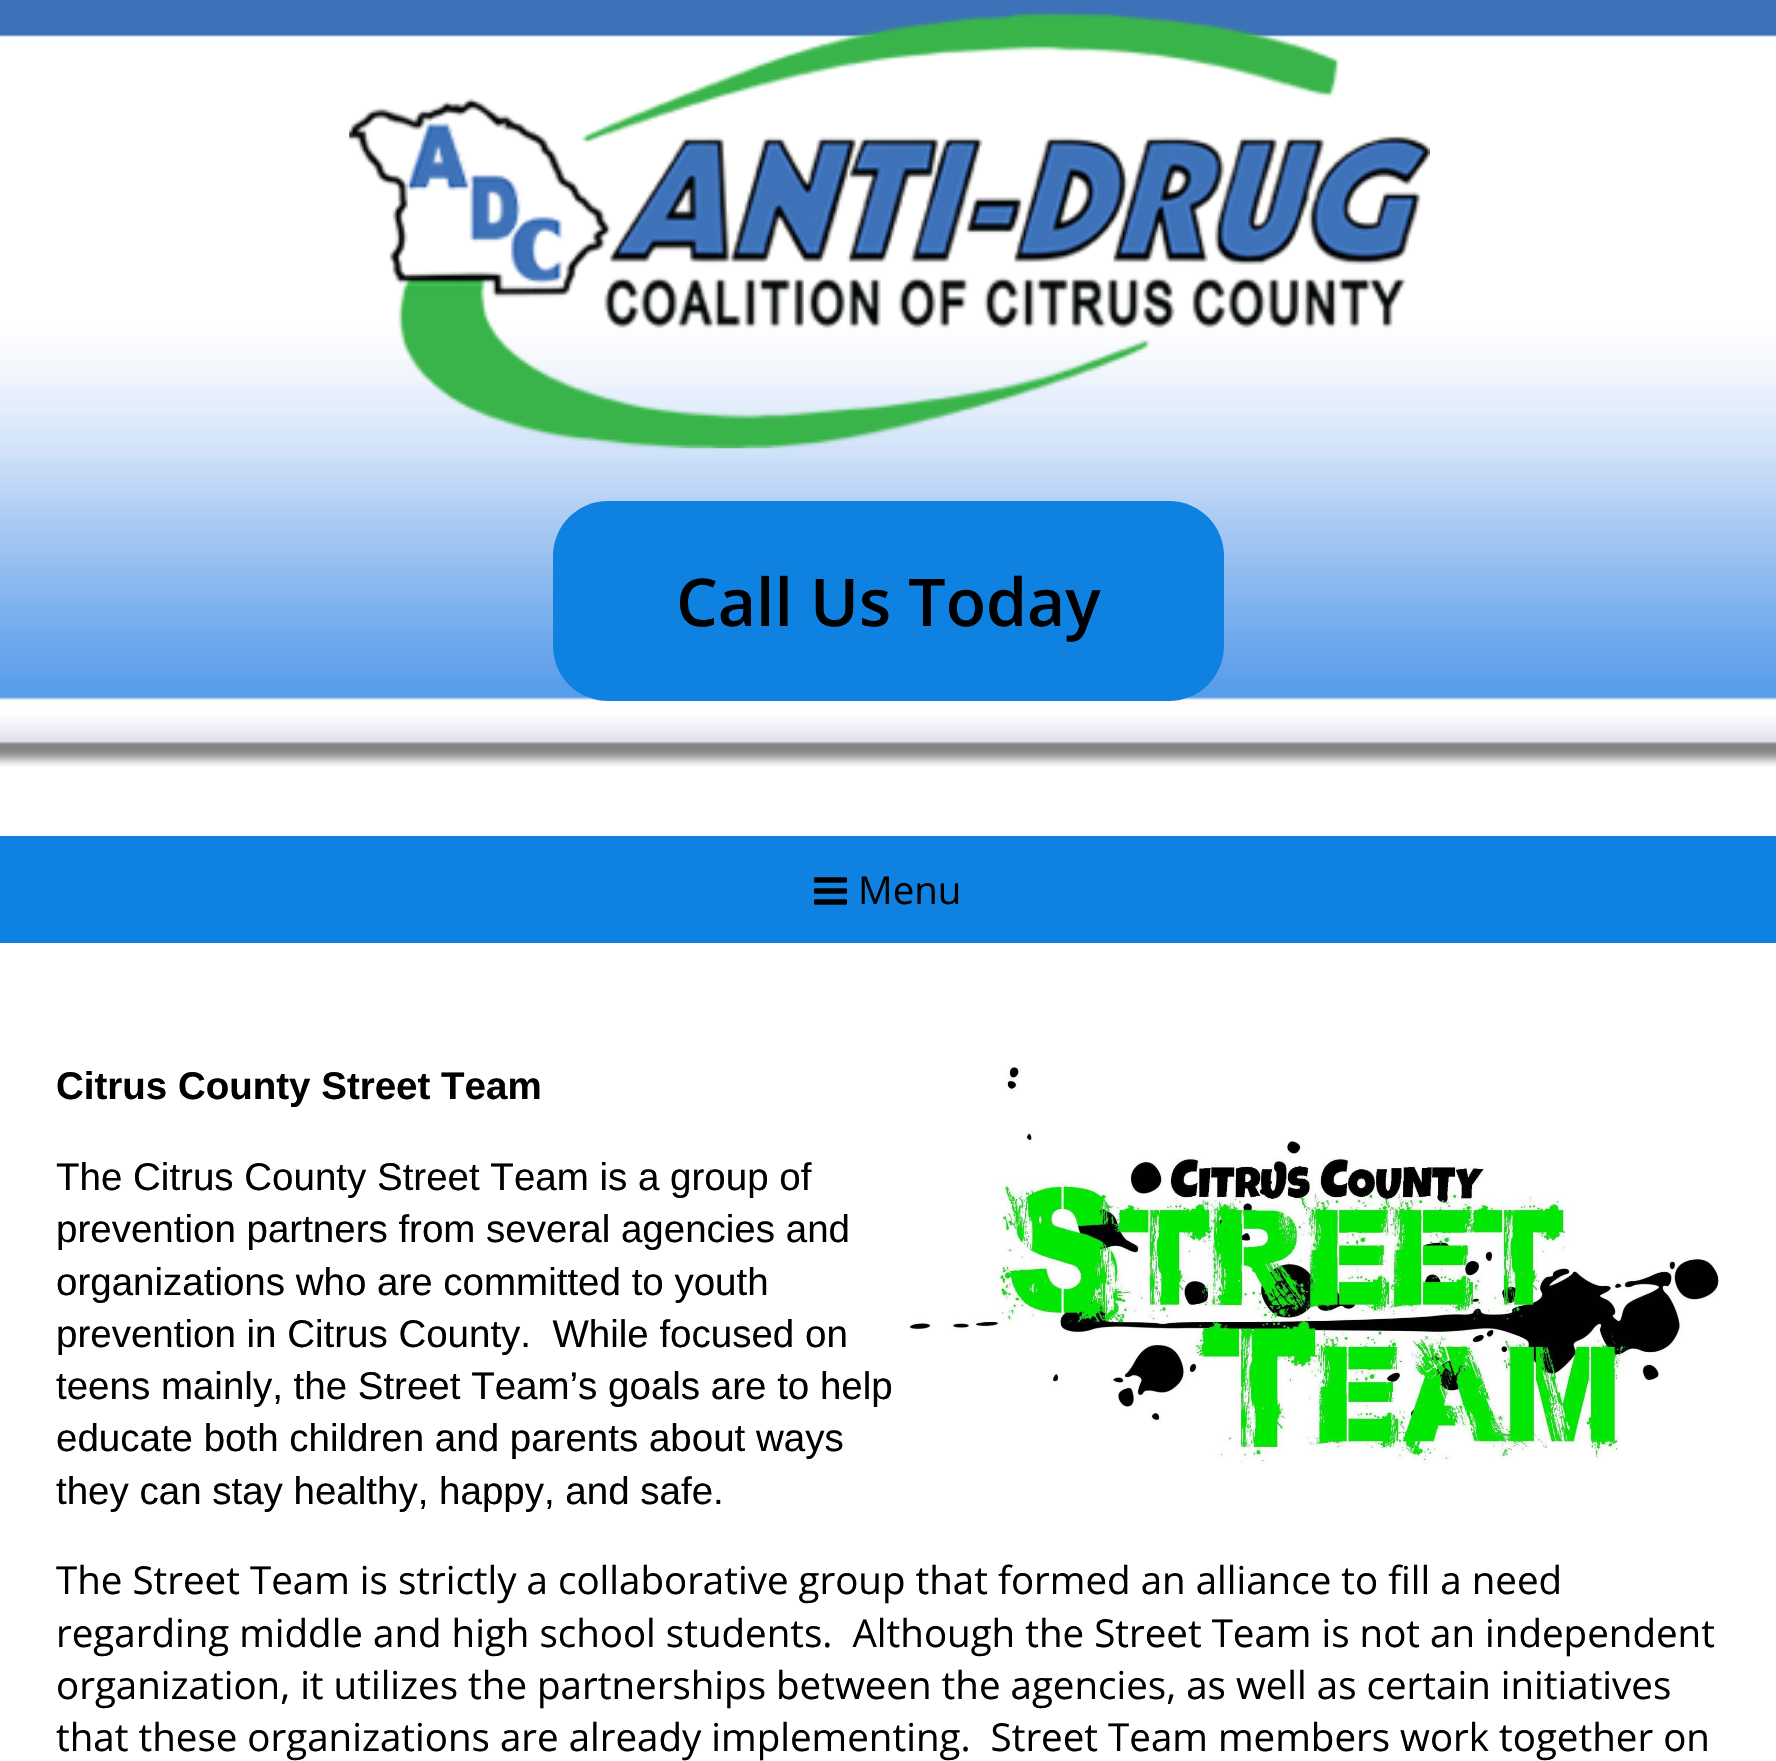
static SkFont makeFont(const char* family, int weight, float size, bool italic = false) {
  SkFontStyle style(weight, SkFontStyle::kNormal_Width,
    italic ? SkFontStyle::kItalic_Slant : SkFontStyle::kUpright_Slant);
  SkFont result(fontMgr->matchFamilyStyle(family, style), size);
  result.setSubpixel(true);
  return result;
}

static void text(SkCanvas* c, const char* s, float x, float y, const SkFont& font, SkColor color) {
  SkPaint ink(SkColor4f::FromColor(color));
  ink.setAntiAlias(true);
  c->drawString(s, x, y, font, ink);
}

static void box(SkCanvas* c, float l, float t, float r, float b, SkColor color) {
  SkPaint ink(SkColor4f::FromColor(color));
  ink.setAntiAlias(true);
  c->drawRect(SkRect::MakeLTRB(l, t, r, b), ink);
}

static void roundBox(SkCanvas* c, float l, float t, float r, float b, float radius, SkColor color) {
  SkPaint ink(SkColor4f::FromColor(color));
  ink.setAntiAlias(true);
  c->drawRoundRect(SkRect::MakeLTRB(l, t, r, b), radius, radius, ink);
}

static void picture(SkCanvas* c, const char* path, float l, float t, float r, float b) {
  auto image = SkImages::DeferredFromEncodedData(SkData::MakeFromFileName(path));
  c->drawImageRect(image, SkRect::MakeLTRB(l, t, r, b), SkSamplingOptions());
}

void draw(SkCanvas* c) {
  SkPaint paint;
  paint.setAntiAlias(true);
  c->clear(0xffffffff);
  picture(c, "img_01.png", 0, 0, 1776, 767);
  picture(c, "img_02.png", 349, 13, 1430, 449);
  roundBox(c, 553, 501, 1224, 701, 55, 0xff0f81e1);
  SkFont face1 = makeFont("Open Sans", 600, 66);
  text(c, "Call Us Today", 676, 626, face1, 0xff000000);
  box(c, 0, 836, 1776, 943, 0xff0f81e1);
  picture(c, "img_03.png", 814, 877, 847, 905);
  SkFont face2 = makeFont("Open Sans", 400, 38.5f);
  text(c, "Menu", 858, 904, face2, 0xff000000);
  SkFont face3 = makeFont("Liberation Sans", 700, 38.5f);
  text(c, "Citrus County Street Team", 56, 1099, face3, 0xff000000);
  picture(c, "img_04.png", 908, 1067, 1719, 1464);
  SkFont face4 = makeFont("Liberation Sans", 400, 38.5f);
  text(c, "The Citrus County Street Team is a group of", 56, 1190, face4, 0xff000000);
  text(c, "prevention partners from several agencies and", 56, 1242, face4, 0xff000000);
  text(c, "organizations who are committed to youth", 56, 1295, face4, 0xff000000);
  text(c, "prevention in Citrus County.  While focused on", 56, 1347, face4, 0xff000000);
  text(c, "teens mainly, the Street Team’s goals are to help", 56, 1399, face4, 0xff000000);
  text(c, "educate both children and parents about ways", 56, 1451, face4, 0xff000000);
  text(c, "they can stay healthy, happy, and safe.", 56, 1504, face4, 0xff000000);
  text(c, "The Street Team is strictly a collaborative group that formed an alliance to fill a need", 56, 1594, face2, 0xff000000);
  text(c, "regarding middle and high school students.  Although the Street Team is not an independent", 56, 1647, face2, 0xff000000);
  text(c, "organization, it utilizes the partnerships between the agencies, as well as certain initiatives", 56, 1699, face2, 0xff000000);
  text(c, "that these organizations are already implementing.  Street Team members work together on", 56, 1751, face2, 0xff000000);
}
